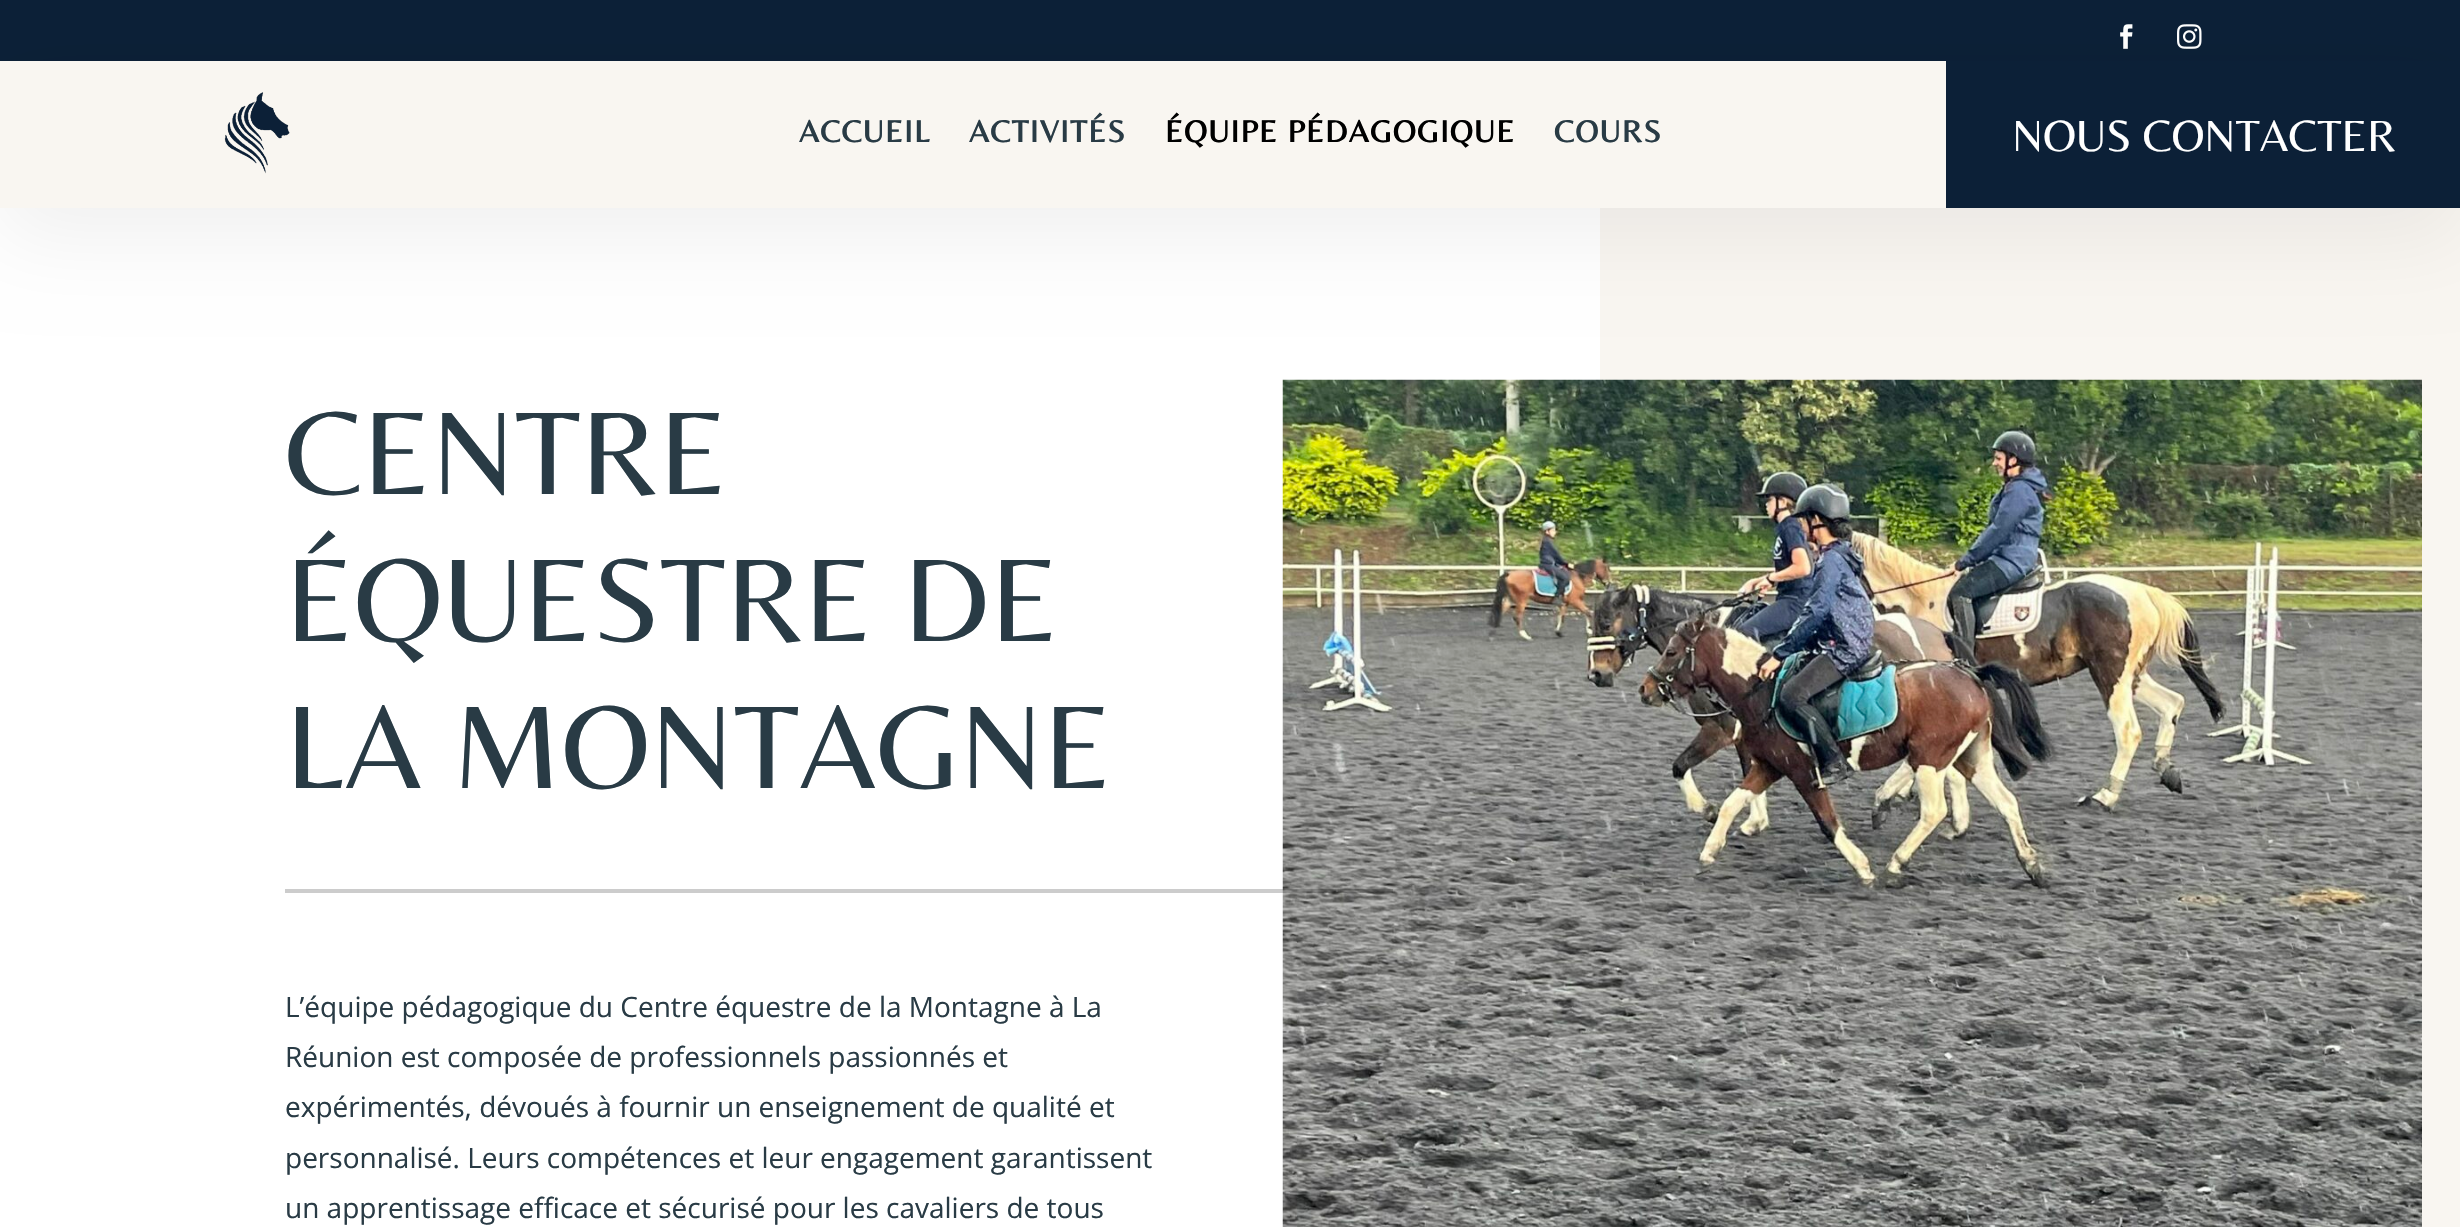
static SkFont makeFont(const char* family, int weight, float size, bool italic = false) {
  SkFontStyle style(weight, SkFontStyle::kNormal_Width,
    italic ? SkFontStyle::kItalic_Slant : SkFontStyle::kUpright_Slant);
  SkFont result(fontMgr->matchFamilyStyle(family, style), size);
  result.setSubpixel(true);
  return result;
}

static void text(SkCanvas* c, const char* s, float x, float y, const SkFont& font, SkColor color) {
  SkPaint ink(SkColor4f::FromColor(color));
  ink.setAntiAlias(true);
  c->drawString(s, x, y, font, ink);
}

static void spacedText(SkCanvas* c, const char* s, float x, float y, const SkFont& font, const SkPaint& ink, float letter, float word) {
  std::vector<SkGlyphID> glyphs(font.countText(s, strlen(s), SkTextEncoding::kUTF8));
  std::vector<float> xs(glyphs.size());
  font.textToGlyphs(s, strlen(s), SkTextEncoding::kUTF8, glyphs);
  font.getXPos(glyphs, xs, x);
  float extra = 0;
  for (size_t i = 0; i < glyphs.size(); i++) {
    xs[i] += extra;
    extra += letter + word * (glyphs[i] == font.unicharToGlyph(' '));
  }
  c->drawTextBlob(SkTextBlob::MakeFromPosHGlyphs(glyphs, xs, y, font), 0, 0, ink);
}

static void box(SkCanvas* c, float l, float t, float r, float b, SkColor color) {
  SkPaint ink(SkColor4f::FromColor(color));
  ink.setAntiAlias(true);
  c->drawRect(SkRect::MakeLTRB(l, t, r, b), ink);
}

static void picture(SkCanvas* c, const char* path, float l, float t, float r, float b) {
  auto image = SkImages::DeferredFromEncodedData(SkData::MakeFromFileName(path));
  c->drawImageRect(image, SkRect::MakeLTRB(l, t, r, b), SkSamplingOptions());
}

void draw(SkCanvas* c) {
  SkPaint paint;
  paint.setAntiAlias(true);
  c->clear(0xfff9f6f1);
  box(c, 0, 0, 2460, 61, 0xff0c2037);
  picture(c, "img_01.png", 2120, 24, 2133, 49);
  picture(c, "img_02.png", 2177, 24, 2202, 49);
  box(c, 0, 208, 1600, 1227, 0xffffffff);
  paint.setColor(0x0f000000);
  paint.setMaskFilter(SkMaskFilter::MakeBlur(kNormal_SkBlurStyle, 42));
  c->drawRect(SkRect::MakeLTRB(0, 89, 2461, 236), paint);
  paint.setMaskFilter(nullptr);
  box(c, 0, 61, 1946, 208, 0xfff9f6f1);
  picture(c, "img_03.png", 224, 92, 290, 174);
  SkFont face1 = makeFont("Belleza", 700, 31.5f);
  paint.setColor(0xff293b45);
  spacedText(c, "ACCUEIL", 799, 142, face1, paint, 1.4f, 0);
  spacedText(c, "ACTIVITÉS", 969, 142, face1, paint, 1.4f, 0);
  paint.setColor(0xff000000);
  spacedText(c, "ÉQUIPE PÉDAGOGIQUE", 1165, 142, face1, paint, 1.4f, 0);
  paint.setColor(0xff293b45);
  spacedText(c, "COURS", 1554, 142, face1, paint, 1.4f, 0);
  box(c, 1946, 61, 2460, 208, 0xff0c2037);
  SkFont face2 = makeFont("Belleza", 400, 45.5f);
  text(c, "NOUS CONTACTER", 2012, 151, face2, 0xffffffff);
  SkFont face3 = makeFont("Belleza", 400, 122.5f);
  text(c, "CENTRE", 285, 494, face3, 0xff293b45);
  text(c, "ÉQUESTRE DE", 285, 641, face3, 0xff293b45);
  text(c, "LA MONTAGNE", 285, 788, face3, 0xff293b45);
  picture(c, "img_04.png", 1282, 379, 2422, 1227);
  box(c, 285, 889, 1393, 893, 0x33000000);
  SkFont face4 = makeFont("Open Sans", 400, 28);
  text(c, "L’équipe pédagogique du Centre équestre de la Montagne à La", 285, 1017, face4, 0xff293b45);
  text(c, "Réunion est composée de professionnels passionnés et", 285, 1067, face4, 0xff293b45);
  text(c, "expérimentés, dévoués à fournir un enseignement de qualité et", 285, 1117, face4, 0xff293b45);
  text(c, "personnalisé. Leurs compétences et leur engagement garantissent", 285, 1168, face4, 0xff293b45);
  text(c, "un apprentissage efficace et sécurisé pour les cavaliers de tous", 285, 1218, face4, 0xff293b45);
}
